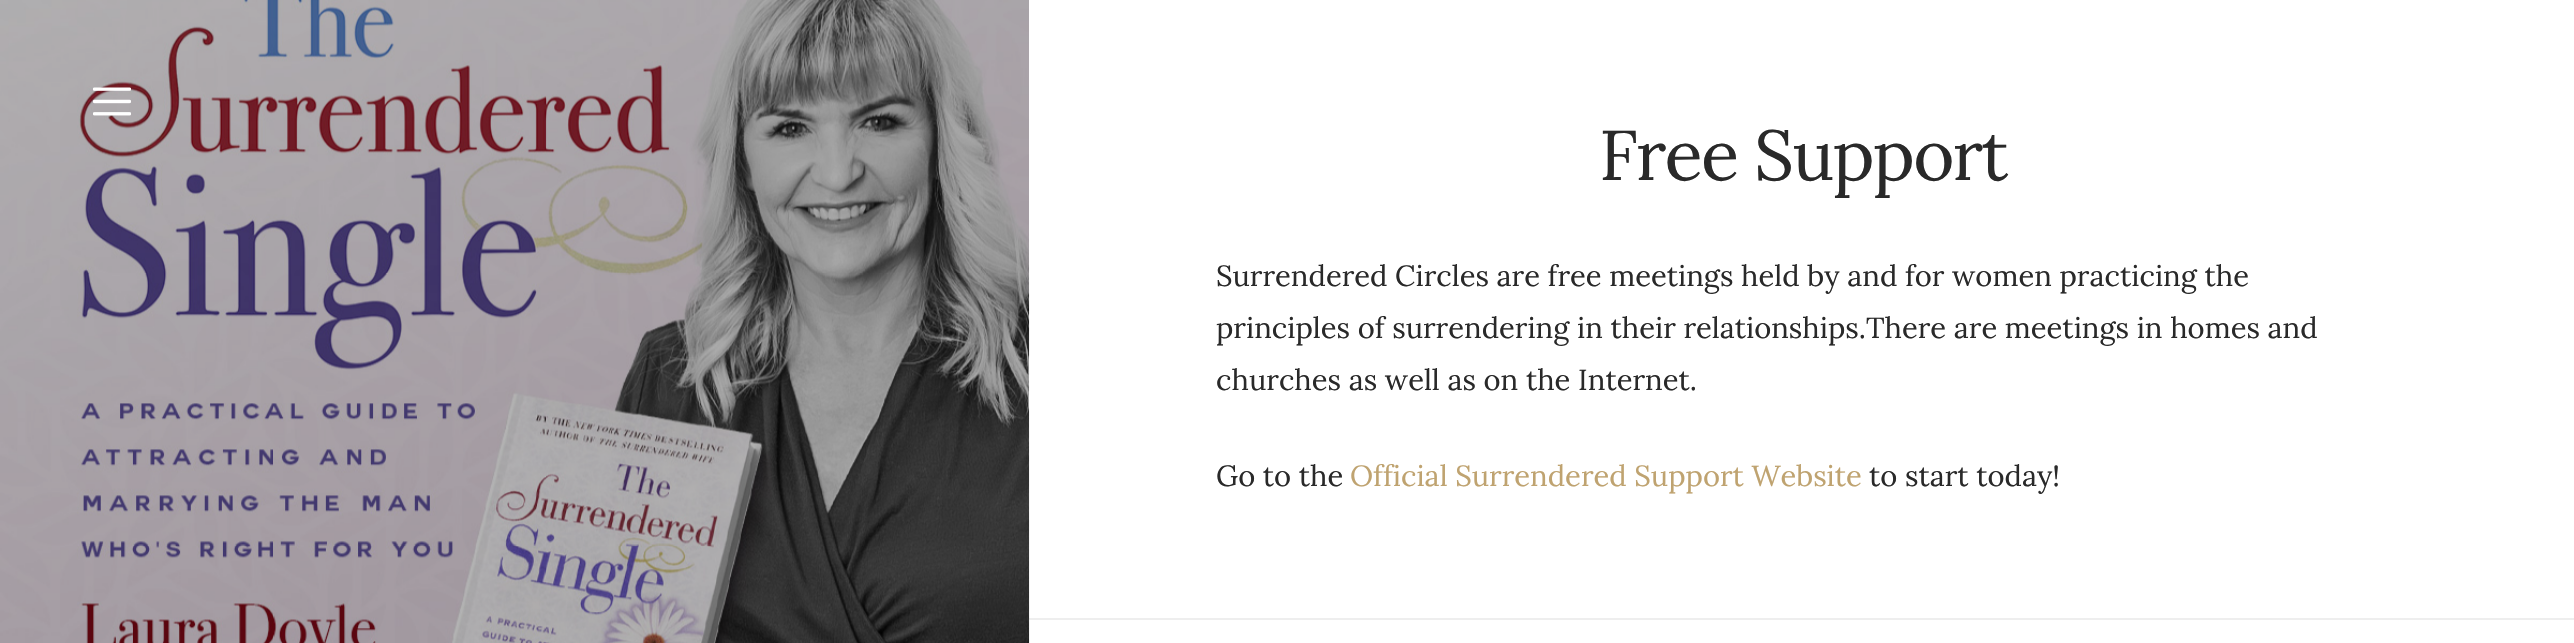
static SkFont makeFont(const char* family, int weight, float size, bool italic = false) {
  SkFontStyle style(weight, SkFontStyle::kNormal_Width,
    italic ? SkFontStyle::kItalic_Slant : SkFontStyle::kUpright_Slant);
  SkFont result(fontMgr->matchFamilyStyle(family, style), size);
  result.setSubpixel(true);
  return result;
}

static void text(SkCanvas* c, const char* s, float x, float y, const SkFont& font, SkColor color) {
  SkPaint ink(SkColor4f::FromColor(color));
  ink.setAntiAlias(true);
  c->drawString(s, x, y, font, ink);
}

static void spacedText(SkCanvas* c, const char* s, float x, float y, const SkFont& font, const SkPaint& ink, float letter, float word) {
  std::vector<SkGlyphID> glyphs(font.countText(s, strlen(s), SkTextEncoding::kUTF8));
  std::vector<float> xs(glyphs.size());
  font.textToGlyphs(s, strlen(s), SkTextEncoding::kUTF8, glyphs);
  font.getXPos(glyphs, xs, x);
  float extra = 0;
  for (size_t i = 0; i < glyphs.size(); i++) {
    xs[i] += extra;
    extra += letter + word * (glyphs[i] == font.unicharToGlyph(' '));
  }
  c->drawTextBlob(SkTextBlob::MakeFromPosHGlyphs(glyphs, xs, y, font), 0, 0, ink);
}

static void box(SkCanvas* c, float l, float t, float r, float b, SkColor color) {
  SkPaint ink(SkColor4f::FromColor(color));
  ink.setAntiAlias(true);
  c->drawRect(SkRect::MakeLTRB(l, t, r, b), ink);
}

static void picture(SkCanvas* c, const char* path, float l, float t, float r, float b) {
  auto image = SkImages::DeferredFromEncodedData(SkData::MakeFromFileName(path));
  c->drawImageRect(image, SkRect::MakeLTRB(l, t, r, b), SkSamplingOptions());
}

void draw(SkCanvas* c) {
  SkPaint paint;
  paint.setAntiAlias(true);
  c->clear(0xffffffff);
  box(c, 1029, 618, 2574, 620, 0xffeeeeee);
  picture(c, "img_01.png", 0, 0, 1030, 643);
  picture(c, "img_02.png", 93, 87, 131, 116);
  SkFont face1 = makeFont("Lora", 400, 70.5f);
  paint.setColor(0xff292929);
  spacedText(c, "Free Support", 1599, 180, face1, paint, -1.8f, 0);
  SkFont face2 = makeFont("Lora", 400, 29.1f);
  text(c, "Surrendered Circles are free meetings held by and for women practicing the", 1216, 286, face2, 0xff292929);
  text(c, "principles of surrendering in their relationships.There are meetings in homes and", 1216, 338, face2, 0xff292929);
  text(c, "churches as well as on the Internet.", 1216, 390, face2, 0xff292929);
  text(c, "Go to the", 1216, 486, face2, 0xff292929);
  text(c, "Official Surrendered Support Website", 1350, 486, face2, 0xffbfa370);
  text(c, "to start today!", 1869, 486, face2, 0xff292929);
}
